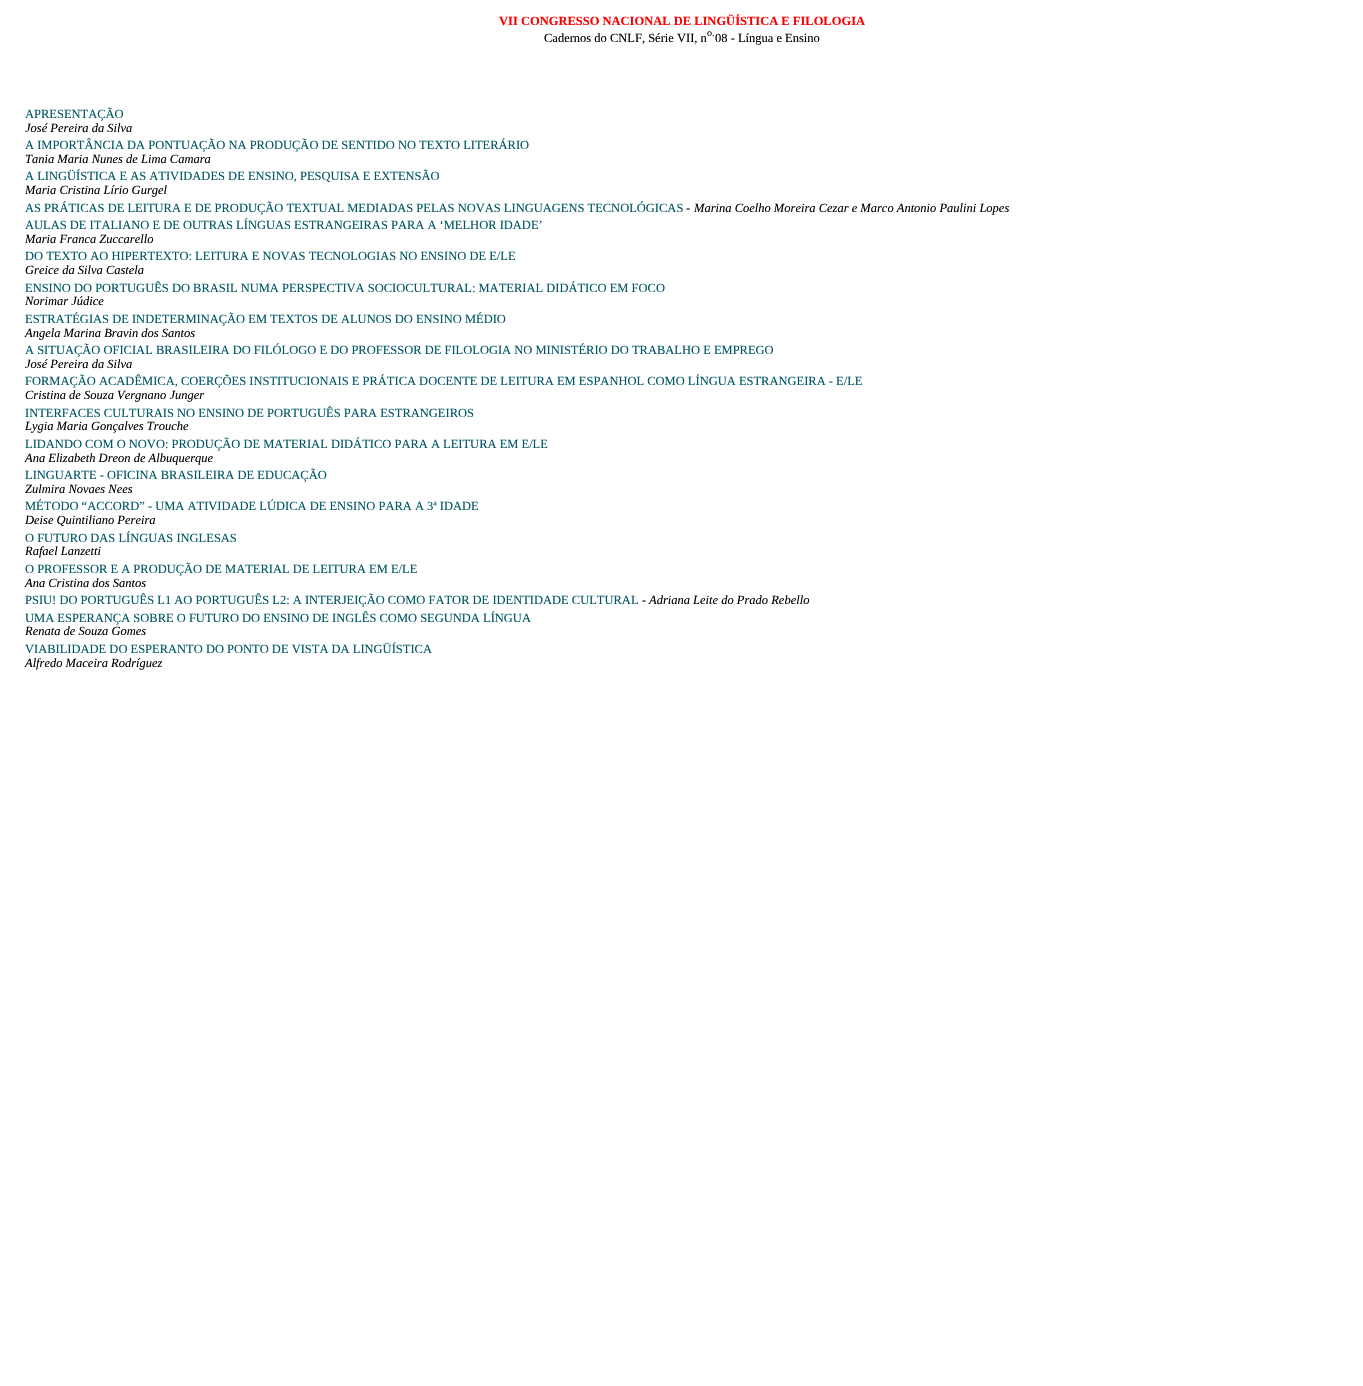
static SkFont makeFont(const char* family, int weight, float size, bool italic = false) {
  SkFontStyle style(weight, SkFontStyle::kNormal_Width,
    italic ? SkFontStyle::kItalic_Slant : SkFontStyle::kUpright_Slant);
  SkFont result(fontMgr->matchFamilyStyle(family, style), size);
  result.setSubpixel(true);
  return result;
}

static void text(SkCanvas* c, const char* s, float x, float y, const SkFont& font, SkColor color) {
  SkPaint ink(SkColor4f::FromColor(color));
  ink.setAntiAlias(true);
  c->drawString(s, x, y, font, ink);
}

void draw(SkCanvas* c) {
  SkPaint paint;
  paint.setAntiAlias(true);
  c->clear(0xffffffff);
  SkFont face1 = makeFont("Liberation Serif", 700, 12.5f);
  text(c, "VII CONGRESSO NACIONAL DE LINGÜÍSTICA E FILOLOGIA", 499, 25, face1, 0xffff0000);
  SkFont face2 = makeFont("Liberation Serif", 400, 12.5f);
  text(c, "Cadernos do CNLF, Série VII, n", 544, 42, face2, 0xff000000);
  SkFont face3 = makeFont("Liberation Serif", 400, 10);
  text(c, "o.", 707, 36, face3, 0xff000000);
  text(c, "08 - Língua e Ensino", 715, 42, face2, 0xff000000);
  text(c, "APRESENTAÇÃO", 25, 118, face2, 0xff005766);
  SkFont face4 = makeFont("Liberation Serif", 400, 12.5f, true);
  text(c, "José Pereira da Silva", 25, 132, face4, 0xff000000);
  text(c, "A IMPORTÂNCIA DA PONTUAÇÃO NA PRODUÇÃO DE SENTIDO NO TEXTO LITERÁRIO", 25, 149, face2, 0xff005766);
  text(c, "Tania Maria Nunes de Lima Camara", 25, 163, face4, 0xff000000);
  text(c, "A LINGÜÍSTICA E AS ATIVIDADES DE ENSINO, PESQUISA E EXTENSÃO", 25, 180, face2, 0xff005766);
  text(c, "Maria Cristina Lírio Gurgel", 25, 194, face4, 0xff000000);
  text(c, "AS PRÁTICAS DE LEITURA E DE PRODUÇÃO TEXTUAL MEDIADAS PELAS NOVAS LINGUAGENS TECNOLÓGICAS", 25, 212, face2, 0xff005766);
  text(c, "-", 686, 212, face2, 0xff000000);
  text(c, "Marina Coelho Moreira Cezar e Marco Antonio Paulini Lopes", 694, 212, face4, 0xff000000);
  text(c, "AULAS DE ITALIANO E DE OUTRAS LÍNGUAS ESTRANGEIRAS PARA A ‘MELHOR IDADE’", 25, 229, face2, 0xff005766);
  text(c, "Maria Franca Zuccarello", 25, 243, face4, 0xff000000);
  text(c, "DO TEXTO AO HIPERTEXTO: LEITURA E NOVAS TECNOLOGIAS NO ENSINO DE E/LE", 25, 260, face2, 0xff005766);
  text(c, "Greice da Silva Castela", 25, 274, face4, 0xff000000);
  text(c, "ENSINO DO PORTUGUÊS DO BRASIL NUMA PERSPECTIVA SOCIOCULTURAL: MATERIAL DIDÁTICO EM FOCO", 25, 292, face2, 0xff005766);
  text(c, "Norimar Júdice", 25, 305, face4, 0xff000000);
  text(c, "ESTRATÉGIAS DE INDETERMINAÇÃO EM TEXTOS DE ALUNOS DO ENSINO MÉDIO", 25, 323, face2, 0xff005766);
  text(c, "Angela Marina Bravin dos Santos", 25, 337, face4, 0xff000000);
  text(c, "A SITUAÇÃO OFICIAL BRASILEIRA DO FILÓLOGO E DO PROFESSOR DE FILOLOGIA NO MINISTÉRIO DO TRABALHO E EMPREGO", 25, 354, face2, 0xff005766);
  text(c, "José Pereira da Silva", 25, 368, face4, 0xff000000);
  text(c, "FORMAÇÃO ACADÊMICA, COERÇÕES INSTITUCIONAIS E PRÁTICA DOCENTE DE LEITURA EM ESPANHOL COMO LÍNGUA ESTRANGEIRA - E/LE", 25, 385, face2, 0xff005766);
  text(c, "Cristina de Souza Vergnano Junger", 25, 399, face4, 0xff000000);
  text(c, "INTERFACES CULTURAIS NO ENSINO DE PORTUGUÊS PARA ESTRANGEIROS", 25, 417, face2, 0xff005766);
  text(c, "Lygia Maria Gonçalves Trouche", 25, 430, face4, 0xff000000);
  text(c, "LIDANDO COM O NOVO: PRODUÇÃO DE MATERIAL DIDÁTICO PARA A LEITURA EM E/LE", 25, 448, face2, 0xff005766);
  text(c, "Ana Elizabeth Dreon de Albuquerque", 25, 462, face4, 0xff000000);
  text(c, "LINGUARTE - OFICINA BRASILEIRA DE EDUCAÇÃO", 25, 479, face2, 0xff005766);
  text(c, "Zulmira Novaes Nees", 25, 493, face4, 0xff000000);
  text(c, "MÉTODO “ACCORD” - UMA ATIVIDADE LÚDICA DE ENSINO PARA A 3ª IDADE", 25, 510, face2, 0xff005766);
  text(c, "Deise Quintiliano Pereira", 25, 524, face4, 0xff000000);
  text(c, "O FUTURO DAS LÍNGUAS INGLESAS", 25, 542, face2, 0xff005766);
  text(c, "Rafael Lanzetti", 25, 555, face4, 0xff000000);
  text(c, "O PROFESSOR E A PRODUÇÃO DE MATERIAL DE LEITURA EM E/LE", 25, 573, face2, 0xff005766);
  text(c, "Ana Cristina dos Santos", 25, 587, face4, 0xff000000);
  text(c, "PSIU! DO PORTUGUÊS L1 AO PORTUGUÊS L2: A INTERJEIÇÃO COMO FATOR DE IDENTIDADE CULTURAL", 25, 604, face2, 0xff005766);
  text(c, "-", 642, 604, face2, 0xff000000);
  text(c, "Adriana Leite do Prado Rebello", 649, 604, face4, 0xff000000);
  text(c, "UMA ESPERANÇA SOBRE O FUTURO DO ENSINO DE INGLÊS COMO SEGUNDA LÍNGUA", 25, 622, face2, 0xff005766);
  text(c, "Renata de Souza Gomes", 25, 635, face4, 0xff000000);
  text(c, "VIABILIDADE DO ESPERANTO DO PONTO DE VISTA DA LINGÜÍSTICA", 25, 653, face2, 0xff005766);
  text(c, "Alfredo Maceira Rodríguez", 25, 667, face4, 0xff000000);
}
